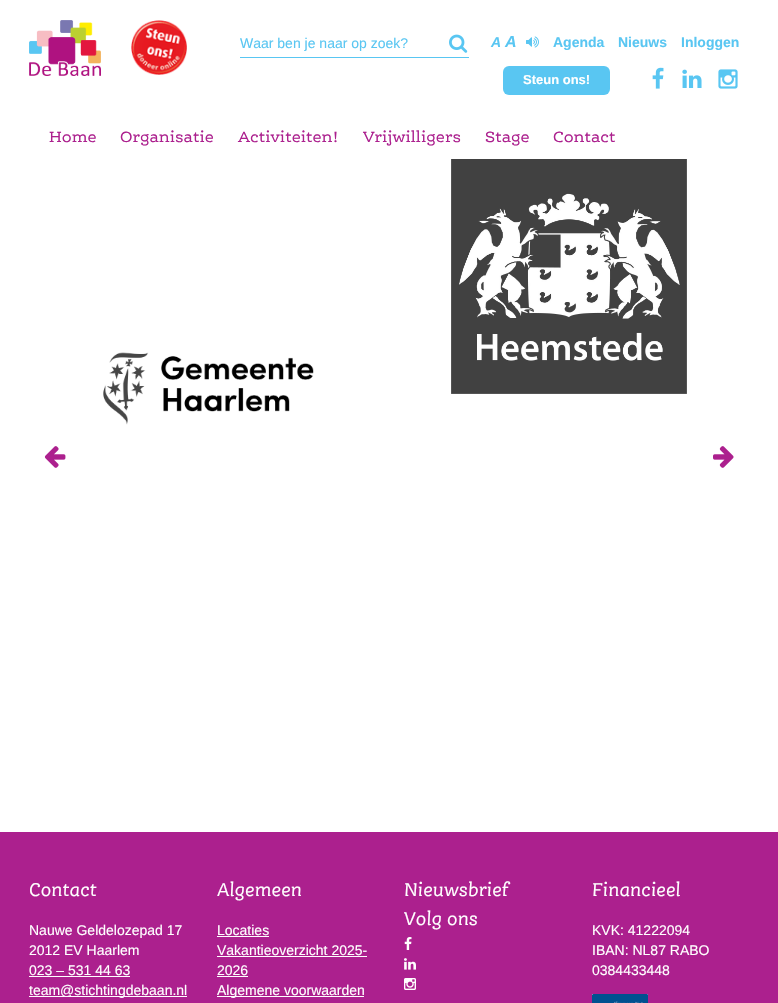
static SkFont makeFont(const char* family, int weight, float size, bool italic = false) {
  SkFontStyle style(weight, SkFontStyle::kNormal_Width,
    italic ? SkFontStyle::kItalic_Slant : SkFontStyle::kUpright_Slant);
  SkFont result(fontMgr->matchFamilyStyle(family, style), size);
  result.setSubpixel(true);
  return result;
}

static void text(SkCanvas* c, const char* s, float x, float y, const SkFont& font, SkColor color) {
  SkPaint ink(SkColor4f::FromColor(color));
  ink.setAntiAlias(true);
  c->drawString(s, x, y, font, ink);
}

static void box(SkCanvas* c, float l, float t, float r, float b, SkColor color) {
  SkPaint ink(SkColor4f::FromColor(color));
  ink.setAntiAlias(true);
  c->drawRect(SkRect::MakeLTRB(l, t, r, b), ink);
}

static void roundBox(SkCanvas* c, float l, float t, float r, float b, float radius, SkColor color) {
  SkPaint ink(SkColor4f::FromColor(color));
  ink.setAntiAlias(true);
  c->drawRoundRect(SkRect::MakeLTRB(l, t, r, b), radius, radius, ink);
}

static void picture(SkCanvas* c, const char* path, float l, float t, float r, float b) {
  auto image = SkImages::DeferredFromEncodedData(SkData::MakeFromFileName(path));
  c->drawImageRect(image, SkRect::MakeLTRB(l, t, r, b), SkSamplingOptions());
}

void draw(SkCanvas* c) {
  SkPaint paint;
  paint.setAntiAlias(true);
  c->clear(0xffffffff);
  picture(c, "img_01.png", 29, 20, 101, 76);
  picture(c, "img_02.png", 131, 20, 187, 75);
  box(c, 239, 57, 469, 58, 0xff59c6f2);
  box(c, 239, 57, 240, 58, 0xffffffff);
  SkFont face1 = makeFont("Liberation Sans", 400, 14);
  text(c, "Waar ben je naar op zoek?", 240, 48, face1, 0xff59c6f2);
  picture(c, "img_03.png", 449, 34, 468, 53);
  SkFont face2 = makeFont("Liberation Sans", 700, 14, true);
  text(c, "A", 491, 47, face2, 0xff59c6f2);
  SkFont face3 = makeFont("Liberation Sans", 700, 16, true);
  text(c, "A", 505, 47, face3, 0xff59c6f2);
  picture(c, "img_04.png", 526, 36, 539, 48);
  SkFont face4 = makeFont("Liberation Sans", 700, 14);
  text(c, "Agenda", 553, 47, face4, 0xff59c6f2);
  text(c, "Nieuws", 618, 47, face4, 0xff59c6f2);
  text(c, "Inloggen", 681, 47, face4, 0xff59c6f2);
  roundBox(c, 503, 66, 610, 95, 6, 0xff59c6f2);
  SkFont face5 = makeFont("Liberation Sans", 700, 13);
  text(c, "Steun ons!", 523, 84, face5, 0xffffffff);
  picture(c, "img_05.png", 652, 67, 664, 89);
  picture(c, "img_06.png", 682, 69, 702, 88);
  picture(c, "img_07.png", 718, 69, 738, 89);
  SkFont face6 = makeFont("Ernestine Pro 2", 400, 16);
  text(c, "Home", 49, 142, face6, 0xffac208e);
  text(c, "Organisatie", 120, 142, face6, 0xffac208e);
  text(c, "Activiteiten!", 238, 142, face6, 0xffac208e);
  text(c, "Vrijwilligers", 363, 142, face6, 0xffac208e);
  text(c, "Stage", 485, 142, face6, 0xffac208e);
  text(c, "Contact", 553, 142, face6, 0xffac208e);
  picture(c, "img_08.png", 103, 352, 314, 425);
  picture(c, "img_09.png", 451, 159, 687, 394);
  picture(c, "img_10.png", 44, 446, 66, 468);
  picture(c, "img_11.png", 713, 446, 734, 468);
  box(c, 0, 832, 778, 1003, 0xffac208e);
  SkFont face7 = makeFont("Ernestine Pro", 400, 20);
  text(c, "Contact", 29, 896, face7, 0xffffffff);
  text(c, "Nauwe Geldelozepad 17", 29, 935, face1, 0xffffffff);
  text(c, "2012 EV Haarlem", 29, 955, face1, 0xffffffff);
  text(c, "023 – 531 44 63", 29, 975, face1, 0xffffffff);
  box(c, 29, 976, 130, 977, 0xffffffff);
  box(c, 29, 996, 187, 997, 0xffffffff);
  text(c, "team@stichtingdebaan.nl", 29, 995, face1, 0xffffffff);
  text(c, "Algemeen", 217, 896, face7, 0xffffffff);
  text(c, "Locaties", 217, 935, face1, 0xffffffff);
  box(c, 217, 936, 269, 937, 0xffffffff);
  text(c, "Vakantieoverzicht 2025-", 217, 955, face1, 0xffffffff);
  box(c, 217, 956, 367, 957, 0xffffffff);
  text(c, "2026", 217, 975, face1, 0xffffffff);
  box(c, 217, 976, 248, 977, 0xffffffff);
  box(c, 217, 996, 364, 997, 0xffffffff);
  text(c, "Algemene voorwaarden", 217, 995, face1, 0xffffffff);
  text(c, "Nieuwsbrief", 404, 896, face7, 0xffffffff);
  text(c, "Volg ons", 404, 925, face7, 0xffffffff);
  picture(c, "img_12.png", 404, 937, 412, 950);
  picture(c, "img_13.png", 404, 958, 416, 970);
  picture(c, "img_14.png", 404, 978, 416, 990);
  text(c, "Financieel", 592, 896, face7, 0xffffffff);
  text(c, "KVK: 41222094", 592, 935, face1, 0xffffffff);
  text(c, "IBAN: NL87 RABO", 592, 955, face1, 0xffffffff);
  text(c, "0384433448", 592, 975, face1, 0xffffffff);
  picture(c, "img_15.png", 592, 994, 648, 1003);
}
